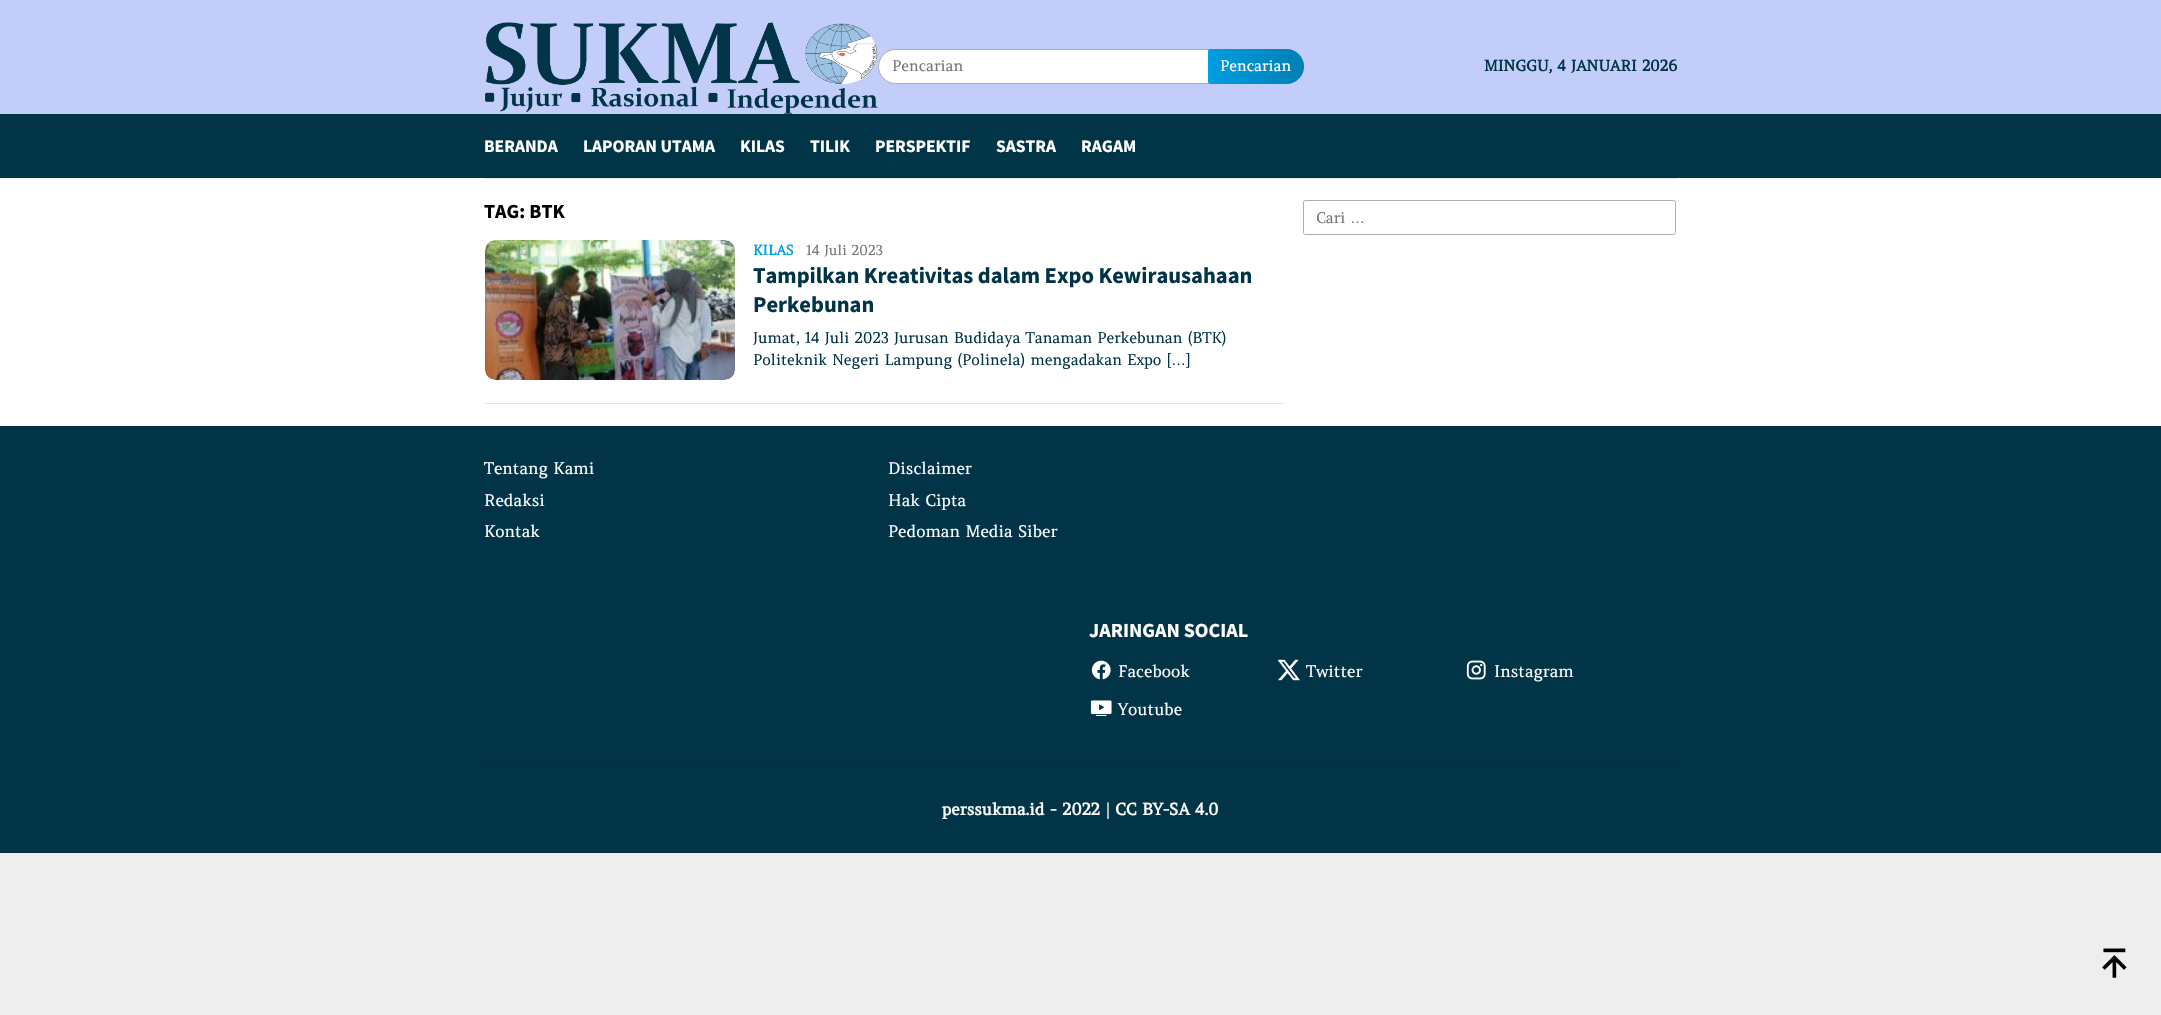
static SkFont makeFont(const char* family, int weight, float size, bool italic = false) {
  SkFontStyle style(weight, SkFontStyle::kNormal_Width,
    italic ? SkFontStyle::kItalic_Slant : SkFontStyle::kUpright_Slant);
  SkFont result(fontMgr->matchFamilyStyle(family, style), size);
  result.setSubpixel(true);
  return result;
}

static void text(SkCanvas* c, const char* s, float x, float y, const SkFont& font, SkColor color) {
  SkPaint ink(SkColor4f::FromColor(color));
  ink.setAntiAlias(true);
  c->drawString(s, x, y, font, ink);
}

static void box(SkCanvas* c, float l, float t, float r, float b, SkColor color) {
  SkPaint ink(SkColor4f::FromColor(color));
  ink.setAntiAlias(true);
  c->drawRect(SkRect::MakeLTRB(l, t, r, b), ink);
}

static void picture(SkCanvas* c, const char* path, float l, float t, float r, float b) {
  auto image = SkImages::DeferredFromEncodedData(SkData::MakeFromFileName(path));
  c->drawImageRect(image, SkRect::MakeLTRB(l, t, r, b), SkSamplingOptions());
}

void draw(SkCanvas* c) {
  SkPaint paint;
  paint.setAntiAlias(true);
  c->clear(0xffeeeeee);
  box(c, 0, 0, 2161, 114, 0xffc2cdf9);
  picture(c, "img_01.png", 485, 22, 878, 114);
  paint.setColor(0xffffffff);
  c->drawRoundRect(SkRect::MakeLTRB(878.5f, 49.5f, 1303.5f, 83.5f), 17, 17, paint);
  paint.setStyle(SkPaint::kStroke_Style);
  paint.setStrokeWidth(1);
  paint.setColor(0xffadadad);
  c->drawRoundRect(SkRect::MakeLTRB(878.5f, 49.5f, 1303.5f, 83.5f), 17, 17, paint);
  SkFont face1 = makeFont("Amethysta", 400, 15);
  text(c, "Pencarian", 892, 71, face1, 0xff757575);
  paint.setStyle(SkPaint::kFill_Style);
  paint.setColor(0xff009ee2);
  c->drawPath(SkPathBuilder().moveTo(1210.5f, 49).lineTo(1286.5f, 49).cubicTo(1296, 49, 1304, 57, 1304, 66.5f).cubicTo(1304, 76, 1296, 84, 1286.5f, 84).lineTo(1210.5f, 84).cubicTo(1209, 84, 1208, 83, 1208, 81.5f).lineTo(1208, 51.5f).cubicTo(1208, 50, 1209, 49, 1210.5f, 49).close().detach(), paint);
  {
    const SkColor colors[] = {0x00000000, 0x33000000};
    const float stops[] = {0, 1};
    const SkPoint ends[] = {{1208, 66}, {1304, 66}};
    paint.setShader(SkGradientShader::MakeLinear(ends, colors, stops, 2, SkTileMode::kClamp));
    paint.setAlpha(255);
  }
  c->drawPath(SkPathBuilder().moveTo(1210.5f, 49).lineTo(1286.5f, 49).cubicTo(1296, 49, 1304, 57, 1304, 66.5f).cubicTo(1304, 76, 1296, 84, 1286.5f, 84).lineTo(1210.5f, 84).cubicTo(1209, 84, 1208, 83, 1208, 81.5f).lineTo(1208, 51.5f).cubicTo(1208, 50, 1209, 49, 1210.5f, 49).close().detach(), paint);
  text(c, "Pencarian", 1220, 71, face1, 0xffffffff);
  SkFont face2 = makeFont("Amethysta", 700, 15);
  text(c, "MINGGU, 4 JANUARI 2026", 1484, 71, face2, 0xff013447);
  box(c, 0, 114, 2161, 178, 0xff013447);
  box(c, 0, 178, 2161, 426, 0xffffffff);
  paint.setShader(nullptr);
  paint.setColor(0xffe6e6e6);
  c->drawPath(SkPathBuilder().moveTo(485, 178).lineTo(485, 179).lineTo(1678, 179).lineTo(1678, 115).lineTo(1678, 178).close().detach(), paint);
  SkFont face3 = makeFont("Source Sans Pro", 700, 17.5f);
  text(c, "BERANDA", 484, 152, face3, 0xffffffff);
  text(c, "LAPORAN UTAMA", 583, 152, face3, 0xffffffff);
  text(c, "KILAS", 740, 152, face3, 0xffffffff);
  text(c, "TILIK", 810, 152, face3, 0xffffffff);
  text(c, "PERSPEKTIF", 875, 152, face3, 0xffffffff);
  text(c, "SASTRA", 996, 152, face3, 0xffffffff);
  text(c, "RAGAM", 1081, 152, face3, 0xffffffff);
  SkFont face4 = makeFont("Source Sans Pro", 700, 20);
  text(c, "TAG: BTK", 484, 218, face4, 0xff000000);
  box(c, 485, 403, 1285, 404, 0xffe5e5e5);
  picture(c, "img_02.png", 485, 240, 735, 380);
  SkFont face5 = makeFont("Amethysta", 700, 13.75f);
  text(c, "KILAS", 753, 255, face5, 0xff009ee2);
  SkFont face6 = makeFont("Amethysta", 400, 13.75f);
  text(c, "14 Juli 2023", 806, 255, face6, 0xff757575);
  SkFont face7 = makeFont("Source Sans Pro", 700, 22.5f);
  text(c, "Tampilkan Kreativitas dalam Expo Kewirausahaan", 753, 283, face7, 0xff013447);
  text(c, "Perkebunan", 753, 312, face7, 0xff013447);
  text(c, "Jumat, 14 Juli 2023 Jurusan Budidaya Tanaman Perkebunan (BTK)", 753, 343, face1, 0xff013447);
  text(c, "Politeknik Negeri Lampung (Polinela) mengadakan Expo [", 753, 365, face1, 0xff013447);
  SkFont face8 = makeFont("Liberation Sans", 400, 15);
  text(c, "…", 1171, 365, face8, 0xff013447);
  text(c, "]", 1186, 365, face1, 0xff013447);
  paint.setStyle(SkPaint::kStroke_Style);
  paint.setColor(0xffadadad);
  c->drawRoundRect(SkRect::MakeLTRB(1303.5f, 200.5f, 1675.5f, 234.5f), 2, 2, paint);
  text(c, "Cari", 1316, 223, face1, 0xff757575);
  text(c, "…", 1350, 223, face8, 0xff757575);
  box(c, 0, 426, 2161, 853, 0xff013447);
  SkFont face9 = makeFont("Amethysta", 400, 16.25f);
  text(c, "Tentang Kami", 484, 474, face9, 0xffffffff);
  text(c, "Redaksi", 484, 506, face9, 0xffffffff);
  text(c, "Kontak", 484, 537, face9, 0xffffffff);
  text(c, "Disclaimer", 888, 474, face9, 0xffffffff);
  text(c, "Hak Cipta", 888, 506, face9, 0xffffffff);
  text(c, "Pedoman Media Siber", 888, 537, face9, 0xffffffff);
  text(c, "JARINGAN SOCIAL", 1089, 637, face4, 0xffffffff);
  picture(c, "img_03.png", 1091, 660, 1111, 680);
  text(c, "Facebook", 1118, 677, face9, 0xffffffff);
  picture(c, "img_04.png", 1278, 659, 1300, 681);
  text(c, "Twitter", 1306, 677, face9, 0xffffffff);
  picture(c, "img_05.png", 1466, 660, 1486, 680);
  text(c, "Instagram", 1494, 677, face9, 0xffffffff);
  picture(c, "img_06.png", 1090, 700, 1112, 716);
  text(c, "Youtube", 1118, 715, face9, 0xffffffff);
  box(c, 485, 766, 1678, 767, 0xff013143);
  SkFont face10 = makeFont("Amethysta", 700, 16.25f);
  text(c, "perssukma.id - 2022", 942, 815, face10, 0xffffffff);
  text(c, "|", 1106, 815, face9, 0xffffffff);
  text(c, "CC BY-SA 4.0", 1115, 815, face10, 0xffffffff);
  picture(c, "img_07.png", 2102, 948, 2127, 978);
}
